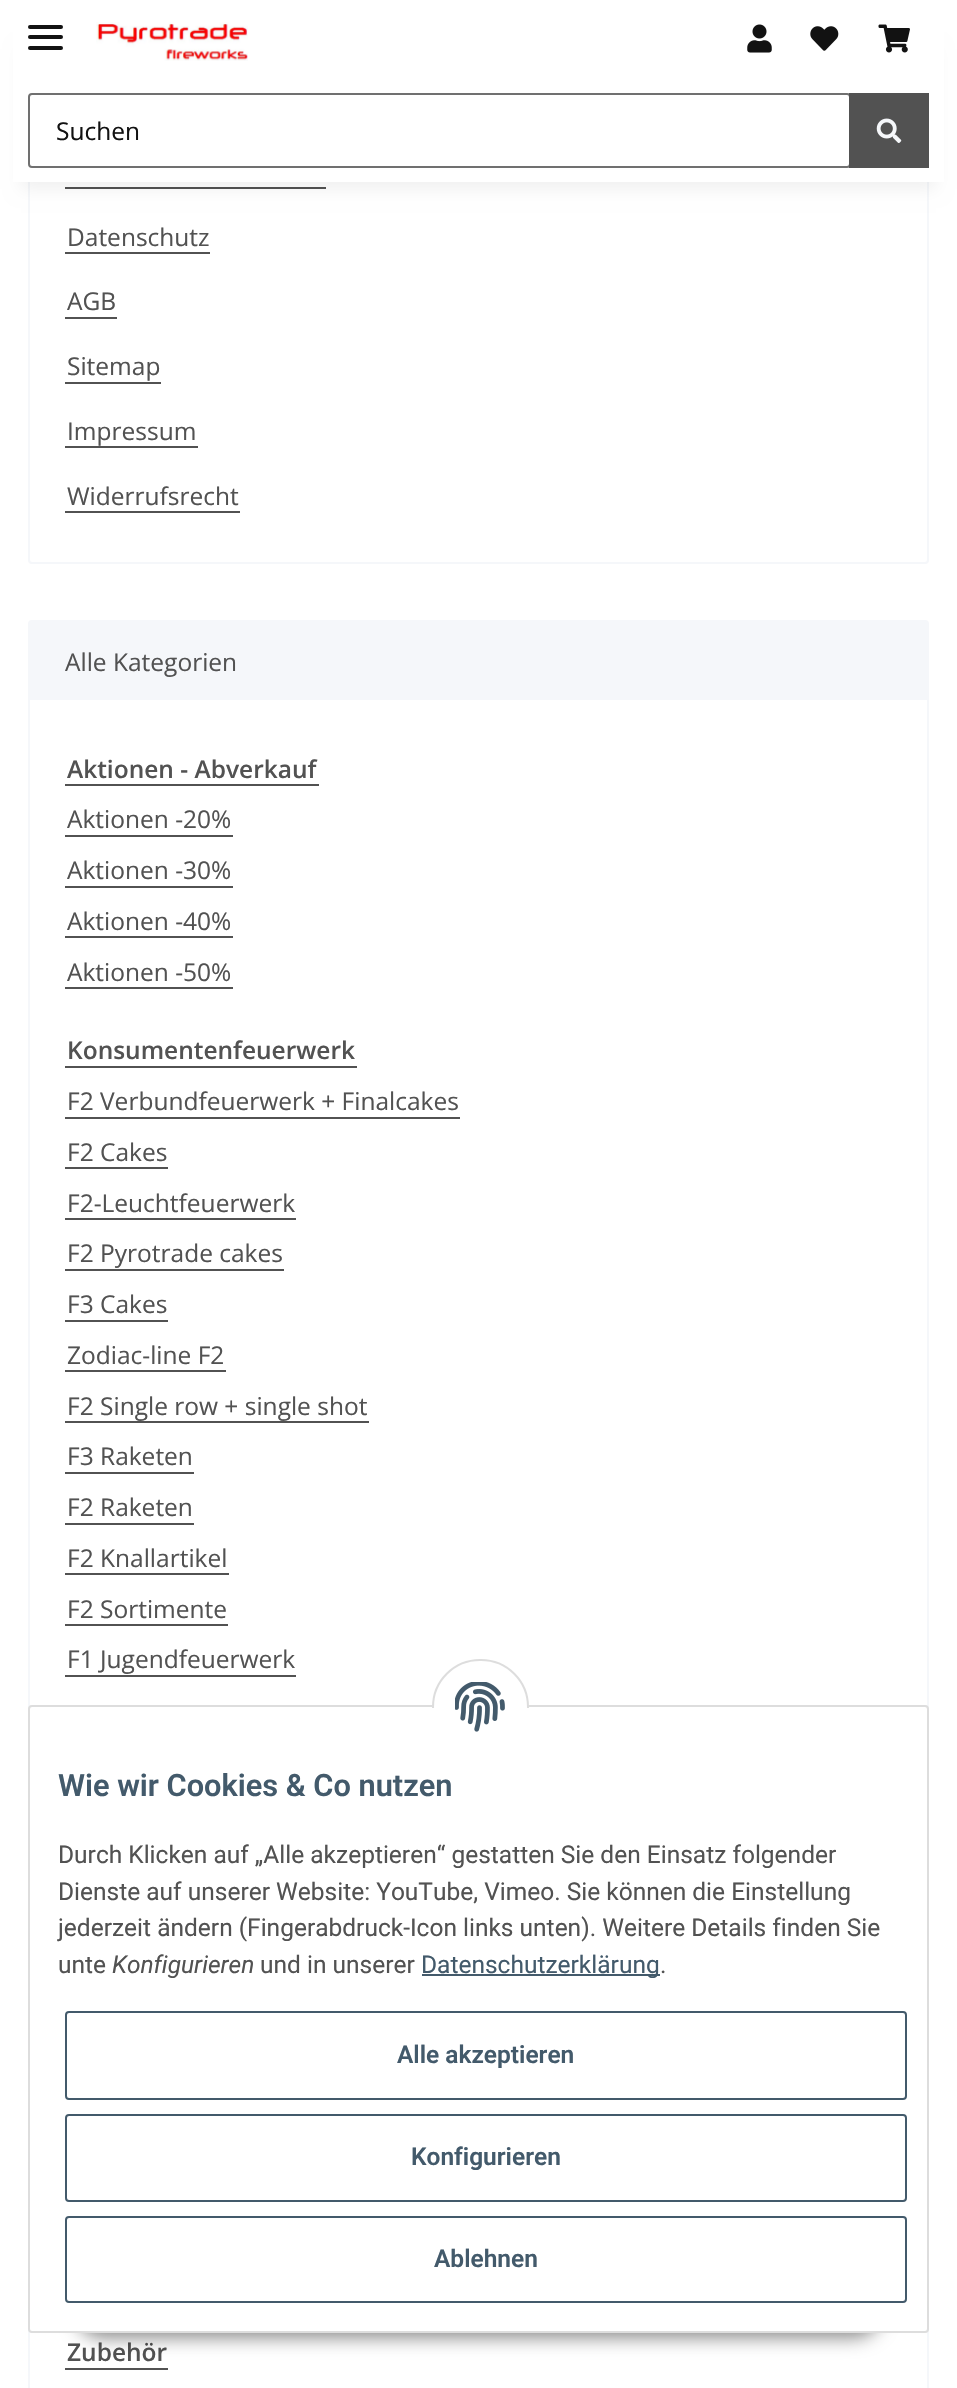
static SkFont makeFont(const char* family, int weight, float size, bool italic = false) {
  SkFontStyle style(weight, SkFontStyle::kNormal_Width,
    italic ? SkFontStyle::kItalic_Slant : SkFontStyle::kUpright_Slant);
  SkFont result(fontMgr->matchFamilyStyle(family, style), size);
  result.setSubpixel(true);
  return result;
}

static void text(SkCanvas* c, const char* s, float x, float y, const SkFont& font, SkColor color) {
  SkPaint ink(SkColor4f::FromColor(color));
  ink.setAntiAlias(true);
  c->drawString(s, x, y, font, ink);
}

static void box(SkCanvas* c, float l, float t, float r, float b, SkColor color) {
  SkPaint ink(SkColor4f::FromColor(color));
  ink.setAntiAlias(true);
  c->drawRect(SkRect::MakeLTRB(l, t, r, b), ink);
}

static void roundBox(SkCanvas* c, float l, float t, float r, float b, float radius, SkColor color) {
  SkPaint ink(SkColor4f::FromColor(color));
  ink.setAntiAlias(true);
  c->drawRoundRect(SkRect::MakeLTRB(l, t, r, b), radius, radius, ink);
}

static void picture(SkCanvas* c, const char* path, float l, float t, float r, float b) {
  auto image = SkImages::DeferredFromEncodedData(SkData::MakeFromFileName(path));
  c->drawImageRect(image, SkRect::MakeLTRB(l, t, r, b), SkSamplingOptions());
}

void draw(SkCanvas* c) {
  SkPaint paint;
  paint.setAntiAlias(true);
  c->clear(0xffffffff);
  paint.setStyle(SkPaint::kStroke_Style);
  paint.setStrokeWidth(2);
  paint.setColor(0xfff5f7fa);
  c->drawRoundRect(SkRect::MakeLTRB(29, -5, 928, 563), 3, 3, paint);
  box(c, 65, 187, 326, 189, 0xff525252);
  paint.setStyle(SkPaint::kFill_Style);
  paint.setColor(0x0f000000);
  paint.setMaskFilter(SkMaskFilter::MakeBlur(kNormal_SkBlurStyle, 8));
  c->drawRect(SkRect::MakeLTRB(21, 49, 936, 189), paint);
  paint.setMaskFilter(nullptr);
  box(c, 13, 0, 944, 182, 0xffffffff);
  roundBox(c, 28, 35, 63, 39, 2, 0xff121212);
  roundBox(c, 28, 25, 63, 29, 2, 0xff121212);
  roundBox(c, 28, 46, 63, 50, 2, 0xff121212);
  picture(c, "img_01.png", 96, 22, 248, 61);
  picture(c, "img_02.png", 747, 24, 772, 53);
  picture(c, "img_03.png", 810, 26, 839, 51);
  picture(c, "img_04.png", 878, 24, 910, 53);
  paint.setStyle(SkPaint::kStroke_Style);
  paint.setColor(0xff707070);
  c->drawRoundRect(SkRect::MakeLTRB(29, 94, 850, 167), 3, 3, paint);
  SkFont face1 = makeFont("Open Sans", 400, 24.5f);
  text(c, "Suchen", 56, 140, face1, 0xff121212);
  box(c, 849, 93, 929, 168, 0xff525252);
  picture(c, "img_05.png", 876, 118, 902, 143);
  text(c, "Datenschutz", 67, 246, face1, 0xff525252);
  box(c, 65, 252, 210, 254, 0xff525252);
  text(c, "AGB", 67, 310, face1, 0xff525252);
  box(c, 65, 317, 117, 319, 0xff525252);
  text(c, "Sitemap", 67, 375, face1, 0xff525252);
  box(c, 65, 382, 161, 384, 0xff525252);
  text(c, "Impressum", 67, 440, face1, 0xff525252);
  box(c, 65, 446, 198, 448, 0xff525252);
  text(c, "Widerrufsrecht", 67, 505, face1, 0xff525252);
  box(c, 65, 511, 240, 513, 0xff525252);
  paint.setColor(0xfff5f7fa);
  c->drawRoundRect(SkRect::MakeLTRB(29, 621, 928, 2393), 3, 3, paint);
  paint.setStyle(SkPaint::kFill_Style);
  c->drawPath(SkPathBuilder().moveTo(32, 621).lineTo(926, 621).cubicTo(927, 621, 928, 622, 928, 623).lineTo(928, 700).lineTo(30, 700).lineTo(30, 623).cubicTo(30, 622, 31, 621, 32, 621).close().detach(), paint);
  text(c, "Alle Kategorien", 65, 671, face1, 0xff525252);
  SkFont face2 = makeFont("Open Sans", 600, 24.5f);
  text(c, "Aktionen - Abverkauf", 67, 778, face2, 0xff525252);
  box(c, 65, 784, 319, 786, 0xff525252);
  text(c, "Aktionen -20%", 67, 828, face1, 0xff525252);
  box(c, 65, 835, 233, 837, 0xff525252);
  text(c, "Aktionen -30%", 67, 879, face1, 0xff525252);
  box(c, 65, 886, 233, 888, 0xff525252);
  text(c, "Aktionen -40%", 67, 930, face1, 0xff525252);
  box(c, 65, 936, 233, 938, 0xff525252);
  text(c, "Aktionen -50%", 67, 981, face1, 0xff525252);
  box(c, 65, 987, 233, 989, 0xff525252);
  text(c, "Konsumentenfeuerwerk", 67, 1059, face2, 0xff525252);
  box(c, 65, 1066, 357, 1068, 0xff525252);
  text(c, "F2 Verbundfeuerwerk + Finalcakes", 67, 1110, face1, 0xff525252);
  box(c, 65, 1117, 460, 1119, 0xff525252);
  text(c, "F2 Cakes", 67, 1161, face1, 0xff525252);
  box(c, 65, 1167, 168, 1169, 0xff525252);
  text(c, "F2-Leuchtfeuerwerk", 67, 1212, face1, 0xff525252);
  box(c, 65, 1218, 296, 1220, 0xff525252);
  text(c, "F2 Pyrotrade cakes", 67, 1262, face1, 0xff525252);
  box(c, 65, 1269, 284, 1271, 0xff525252);
  text(c, "F3 Cakes", 67, 1313, face1, 0xff525252);
  box(c, 65, 1320, 168, 1322, 0xff525252);
  text(c, "Zodiac-line F2", 67, 1364, face1, 0xff525252);
  box(c, 65, 1370, 226, 1372, 0xff525252);
  text(c, "F2 Single row + single shot", 67, 1415, face1, 0xff525252);
  box(c, 65, 1421, 369, 1423, 0xff525252);
  text(c, "F3 Raketen", 67, 1465, face1, 0xff525252);
  box(c, 65, 1472, 194, 1474, 0xff525252);
  text(c, "F2 Raketen", 67, 1516, face1, 0xff525252);
  box(c, 65, 1523, 194, 1525, 0xff525252);
  text(c, "F2 Knallartikel", 67, 1567, face1, 0xff525252);
  box(c, 65, 1573, 229, 1575, 0xff525252);
  text(c, "F2 Sortimente", 67, 1618, face1, 0xff525252);
  box(c, 65, 1624, 228, 1626, 0xff525252);
  text(c, "F1 Jugendfeuerwerk", 67, 1668, face1, 0xff525252);
  box(c, 65, 1675, 296, 1677, 0xff525252);
  text(c, "Zubehör", 67, 2361, face2, 0xff525252);
  box(c, 65, 2368, 168, 2370, 0xff525252);
  paint.setColor(0x73000000);
  paint.setMaskFilter(SkMaskFilter::MakeBlur(kNormal_SkBlurStyle, 9));
  c->drawRoundRect(SkRect::MakeLTRB(75, 2282, 882, 2338), 28, 28, paint);
  paint.setMaskFilter(nullptr);
  paint.setColor(0xffffffff);
  c->drawRoundRect(SkRect::MakeLTRB(29, 1706, 928, 2332), 3, 3, paint);
  paint.setStyle(SkPaint::kStroke_Style);
  paint.setColor(0xffdddddd);
  c->drawRoundRect(SkRect::MakeLTRB(29, 1706, 928, 2332), 3, 3, paint);
  paint.setStyle(SkPaint::kFill_Style);
  paint.setColor(0xffffffff);
  c->drawRoundRect(SkRect::MakeLTRB(433, 1660, 528, 1754), 47, 47, paint);
  paint.setStyle(SkPaint::kStroke_Style);
  paint.setColor(0xffdddddd);
  c->drawRoundRect(SkRect::MakeLTRB(433, 1660, 528, 1754), 47, 47, paint);
  box(c, 432, 1708, 529, 1755, 0xffffffff);
  picture(c, "img_06.png", 455, 1682, 505, 1732);
  SkFont face3 = makeFont("Roboto", 600, 30.75f);
  text(c, "Wie wir Cookies & Co nutzen", 58, 1796, face3, 0xff435a6b);
  SkFont face4 = makeFont("Roboto", 400, 24.5f);
  text(c, "Durch Klicken auf „Alle akzeptieren“ gestatten Sie den Einsatz folgender", 58, 1863, face4, 0xff525252);
  text(c, "Dienste auf unserer Website: YouTube, Vimeo. Sie können die Einstellung", 58, 1900, face4, 0xff525252);
  text(c, "jederzeit ändern (Fingerabdruck-Icon links unten). Weitere Details finden Sie", 58, 1936, face4, 0xff525252);
  text(c, "unte", 58, 1973, face4, 0xff525252);
  SkFont face5 = makeFont("Roboto", 400, 24.5f, true);
  text(c, "Konfigurieren", 112, 1973, face5, 0xff525252);
  text(c, "und in unserer", 260, 1973, face4, 0xff525252);
  box(c, 422, 1974, 660, 1976, 0xff435a6b);
  text(c, "Datenschutzerklärung", 421, 1973, face4, 0xff435a6b);
  text(c, ".", 660, 1973, face4, 0xff525252);
  paint.setColor(0xff435a6b);
  c->drawRoundRect(SkRect::MakeLTRB(66, 2012, 906, 2099), 3, 3, paint);
  SkFont face6 = makeFont("Roboto", 600, 24.5f);
  text(c, "Alle akzeptieren", 397, 2063, face6, 0xff435a6b);
  c->drawRoundRect(SkRect::MakeLTRB(66, 2115, 906, 2201), 3, 3, paint);
  text(c, "Konfigurieren", 411, 2165, face6, 0xff435a6b);
  c->drawRoundRect(SkRect::MakeLTRB(66, 2217, 906, 2302), 3, 3, paint);
  text(c, "Ablehnen", 434, 2267, face6, 0xff435a6b);
}
